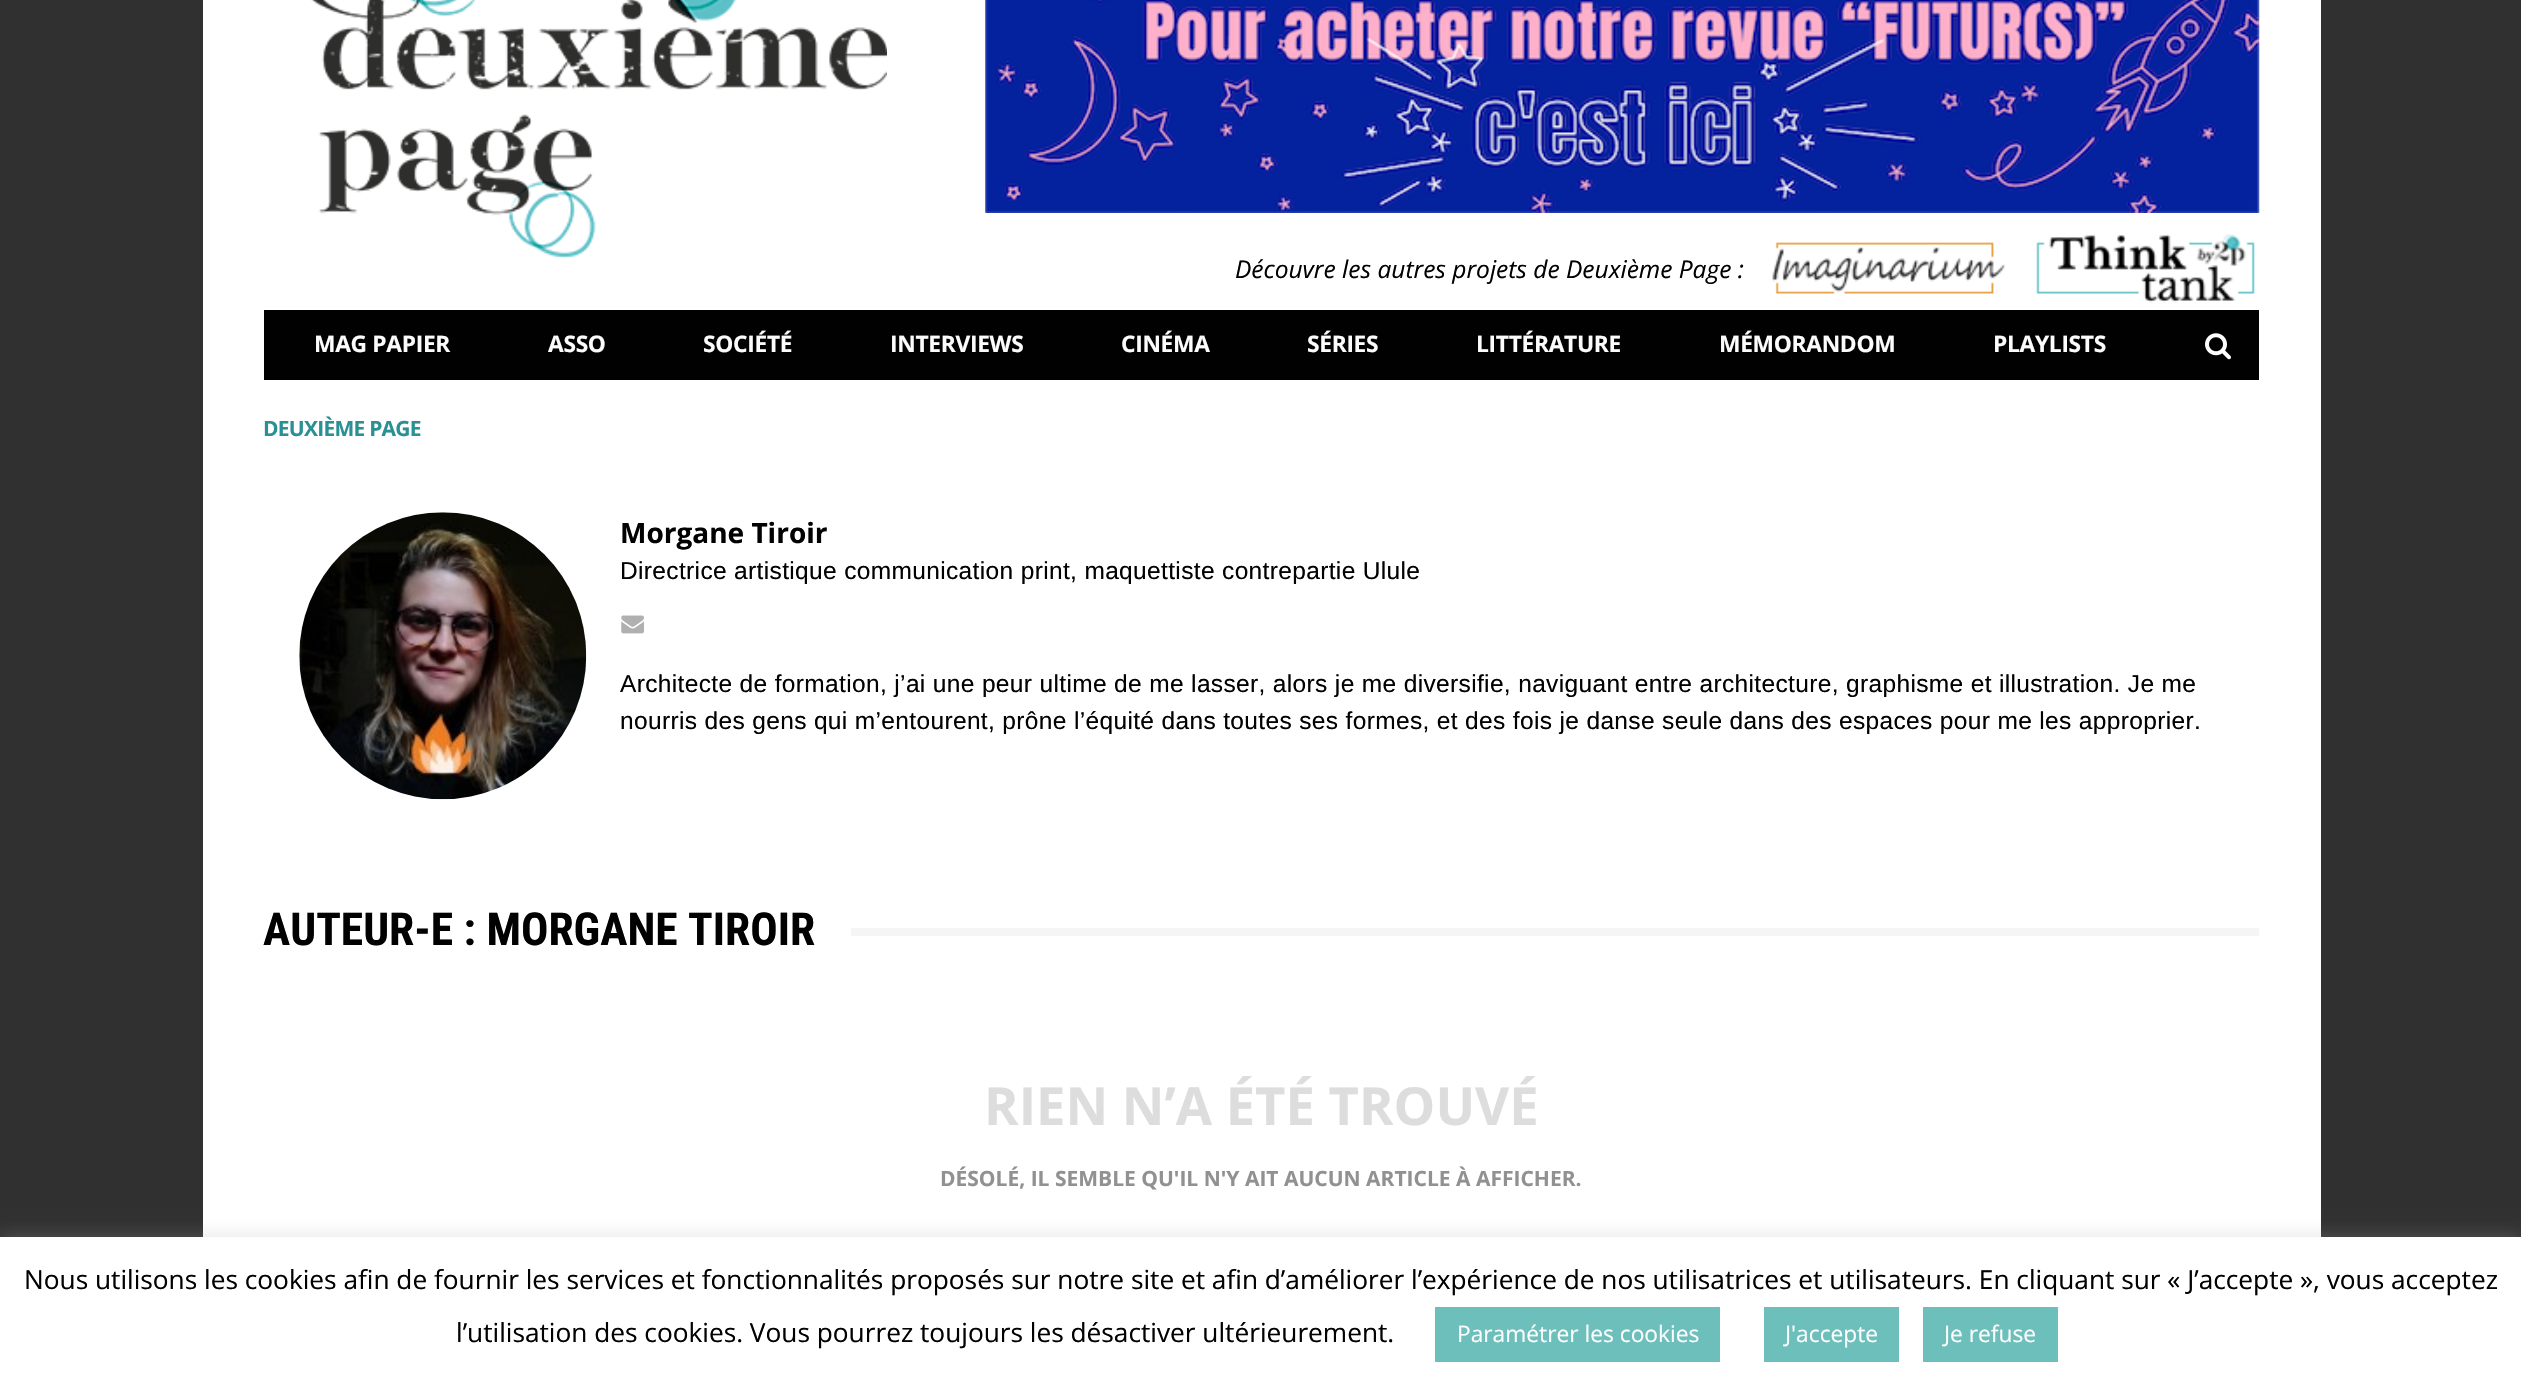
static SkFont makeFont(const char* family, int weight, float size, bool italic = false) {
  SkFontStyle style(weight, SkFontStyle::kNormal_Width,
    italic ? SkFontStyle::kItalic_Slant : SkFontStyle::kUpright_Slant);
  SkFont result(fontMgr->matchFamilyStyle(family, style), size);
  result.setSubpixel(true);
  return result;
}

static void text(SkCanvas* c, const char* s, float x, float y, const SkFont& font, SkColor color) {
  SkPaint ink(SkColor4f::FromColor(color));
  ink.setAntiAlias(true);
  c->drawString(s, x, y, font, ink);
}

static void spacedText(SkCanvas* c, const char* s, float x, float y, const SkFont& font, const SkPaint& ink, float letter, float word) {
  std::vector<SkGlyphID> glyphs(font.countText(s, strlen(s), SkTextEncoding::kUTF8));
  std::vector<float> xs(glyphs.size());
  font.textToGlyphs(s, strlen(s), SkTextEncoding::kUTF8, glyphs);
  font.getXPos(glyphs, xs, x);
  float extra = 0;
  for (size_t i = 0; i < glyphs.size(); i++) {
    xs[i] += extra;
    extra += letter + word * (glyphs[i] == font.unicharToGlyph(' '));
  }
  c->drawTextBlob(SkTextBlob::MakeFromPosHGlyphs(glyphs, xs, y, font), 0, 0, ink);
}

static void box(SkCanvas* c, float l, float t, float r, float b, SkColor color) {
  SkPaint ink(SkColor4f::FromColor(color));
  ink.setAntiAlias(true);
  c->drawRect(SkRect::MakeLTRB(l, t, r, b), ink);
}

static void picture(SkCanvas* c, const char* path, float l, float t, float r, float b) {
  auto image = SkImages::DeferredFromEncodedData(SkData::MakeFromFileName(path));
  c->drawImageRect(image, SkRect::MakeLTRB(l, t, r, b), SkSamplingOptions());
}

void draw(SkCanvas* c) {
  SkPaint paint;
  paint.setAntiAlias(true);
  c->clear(0xff303030);
  box(c, 203, 0, 2321, 1237, 0xffffffff);
  picture(c, "img_01.png", 311, 0, 887, 258);
  picture(c, "img_02.png", 985, 0, 2260, 213);
  SkFont face1 = makeFont("Open Sans", 400, 24.5f, true);
  text(c, "Découvre les autres projets de Deuxième Page :", 1235, 278, face1, 0xff010101);
  picture(c, "img_03.png", 1772, 242, 2006, 294);
  picture(c, "img_04.png", 2036, 234, 2255, 303);
  box(c, 264, 310, 2259, 380, 0xff010101);
  SkFont face2 = makeFont("Open Sans", 700, 22.75f);
  paint.setColor(0xfffcfcfc);
  spacedText(c, "MAG PAPIER", 314, 352, face2, paint, -0.3f, 0);
  spacedText(c, "ASSO", 548, 352, face2, paint, -0.3f, 0);
  spacedText(c, "SOCIÉTÉ", 703, 352, face2, paint, -0.3f, 0);
  spacedText(c, "INTERVIEWS", 890, 352, face2, paint, -0.3f, 0);
  spacedText(c, "CINÉMA", 1121, 352, face2, paint, -0.3f, 0);
  spacedText(c, "SÉRIES", 1307, 352, face2, paint, -0.3f, 0);
  spacedText(c, "LITTÉRATURE", 1476, 352, face2, paint, -0.3f, 0);
  spacedText(c, "MÉMORANDOM", 1719, 352, face2, paint, -0.3f, 0);
  spacedText(c, "PLAYLISTS", 1993, 352, face2, paint, -0.3f, 0);
  picture(c, "img_05.png", 2205, 333, 2231, 360);
  SkFont face3 = makeFont("Open Sans", 700, 21);
  paint.setColor(0xff2a9094);
  spacedText(c, "DEUXIÈME PAGE", 263, 436, face3, paint, -0.75f, 0);
  picture(c, "img_06.png", 299, 512, 587, 800);
  SkFont face4 = makeFont("Open Sans", 700, 28);
  text(c, "Morgane Tiroir", 620, 543, face4, 0xff010101);
  SkFont face5 = makeFont("Liberation Sans", 400, 24.5f);
  paint.setColor(0xff010101);
  spacedText(c, "Directrice artistique communication print, maquettiste contrepartie Ulule", 620, 579, face5, paint, 0.35f, 0);
  picture(c, "img_07.png", 621, 615, 644, 634);
  spacedText(c, "Architecte de formation, j’ai une peur ultime de me lasser, alors je me diversifie, naviguant entre architecture, graphisme et illustration. Je me", 620, 692, face5, paint, 0.35f, 0);
  spacedText(c, "nourris des gens qui m’entourent, prône l’équité dans toutes ses formes, et des fois je danse seule dans des espaces pour me les approprier.", 620, 729, face5, paint, 0.35f, 0);
  SkFont face6 = makeFont("Roboto Condensed", 700, 45.5f);
  text(c, "AUTEUR-E : MORGANE TIROIR", 263, 945, face6, 0xff010101);
  box(c, 851, 928, 2259, 936, 0xfff5f5f5);
  SkFont face7 = makeFont("Open Sans", 700, 52.5f);
  text(c, "RIEN N’A ÉTÉ TROUVÉ", 984, 1125, face7, 0xffdddddd);
  text(c, "DÉSOLÉ, IL SEMBLE QU'IL N'Y AIT AUCUN ARTICLE À AFFICHER.", 940, 1186, face3, 0xff919191);
  paint.setColor(0x4dacabab);
  paint.setMaskFilter(SkMaskFilter::MakeBlur(kNormal_SkBlurStyle, 9));
  c->drawRect(SkRect::MakeLTRB(0, 1236, 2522, 1390), paint);
  paint.setMaskFilter(nullptr);
  box(c, 0, 1237, 2521, 1391, 0xffffffff);
  SkFont face8 = makeFont("Open Sans", 400, 26.25f);
  text(c, "Nous utilisons les cookies afin de fournir les services et fonctionnalités proposés sur notre site et afin d’améliorer l’expérience de nos utilisatrices et utilisateurs. En cliquant sur « J’accepte », vous acceptez", 24, 1289, face8, 0xff010101);
  text(c, "l’utilisation des cookies. Vous pourrez toujours les désactiver ultérieurement.", 456, 1342, face8, 0xff010101);
  box(c, 1435, 1307, 1720, 1362, 0xff6dbfbb);
  SkFont face9 = makeFont("Open Sans", 400, 22.75f);
  text(c, "Paramétrer les cookies", 1457, 1342, face9, 0xfffcfcfc);
  box(c, 1764, 1307, 1899, 1362, 0xff6dbfbb);
  text(c, "J'accepte", 1785, 1342, face9, 0xfffcfcfc);
  box(c, 1923, 1307, 2058, 1362, 0xff6dbfbb);
  text(c, "Je refuse", 1944, 1342, face9, 0xfffcfcfc);
}
